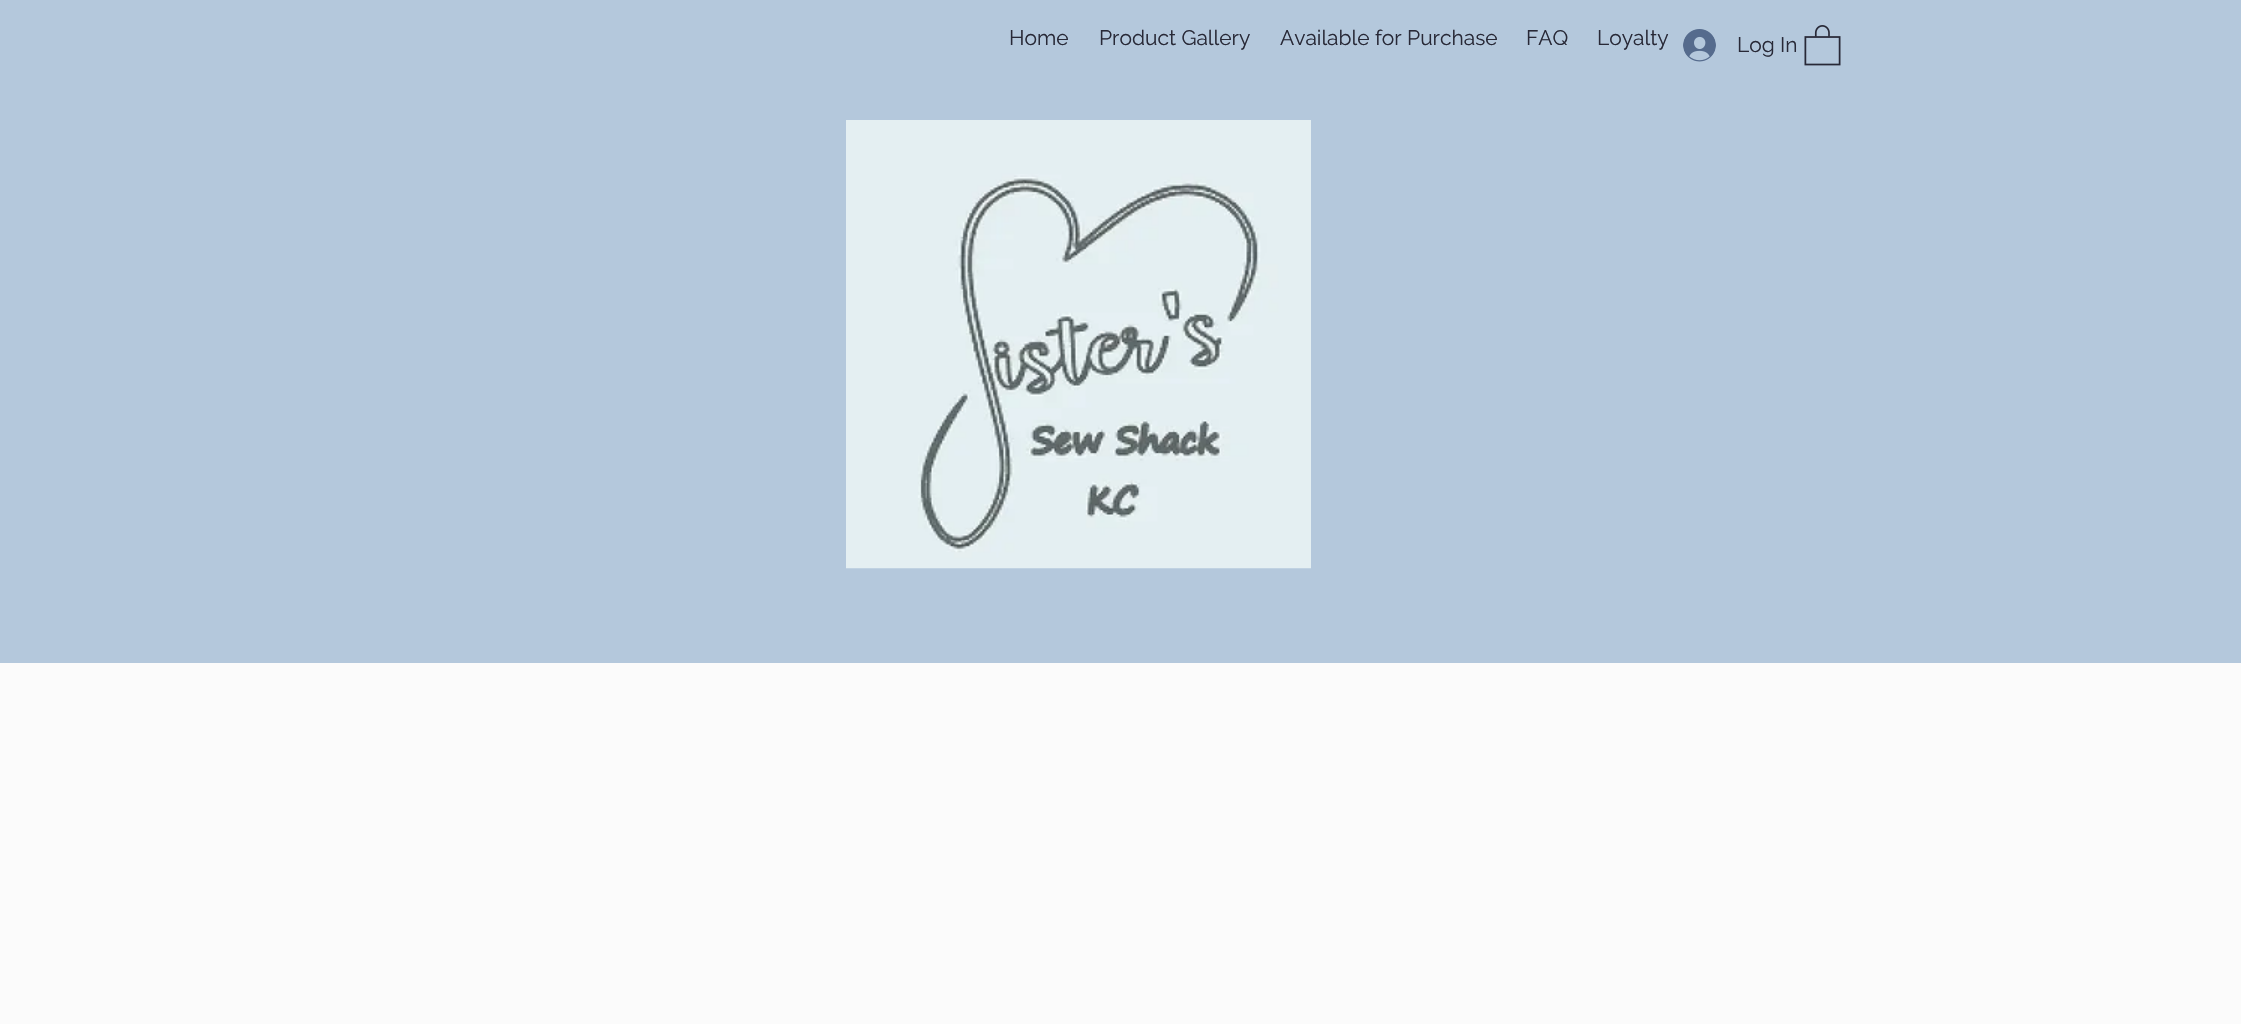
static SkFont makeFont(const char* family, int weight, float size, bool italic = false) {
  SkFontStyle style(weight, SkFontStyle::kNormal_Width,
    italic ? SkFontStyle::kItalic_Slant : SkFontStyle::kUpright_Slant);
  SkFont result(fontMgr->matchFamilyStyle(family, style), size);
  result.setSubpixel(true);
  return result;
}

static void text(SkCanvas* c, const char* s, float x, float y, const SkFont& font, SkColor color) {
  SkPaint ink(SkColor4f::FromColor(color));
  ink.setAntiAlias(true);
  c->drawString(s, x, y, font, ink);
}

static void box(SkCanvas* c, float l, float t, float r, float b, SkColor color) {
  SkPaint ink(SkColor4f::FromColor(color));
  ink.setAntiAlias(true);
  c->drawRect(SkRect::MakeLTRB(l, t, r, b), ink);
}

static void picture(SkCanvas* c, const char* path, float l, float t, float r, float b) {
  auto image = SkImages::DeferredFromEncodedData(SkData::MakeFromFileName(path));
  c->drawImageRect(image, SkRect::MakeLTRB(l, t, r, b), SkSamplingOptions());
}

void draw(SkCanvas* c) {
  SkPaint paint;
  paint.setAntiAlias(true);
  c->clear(0xfffbfbfb);
  box(c, 0, 0, 2241, 663, 0xffb4c8dc);
  SkFont face1 = makeFont("Raleway", 400, 21);
  text(c, "Home", 1009, 45, face1, 0xff282937);
  text(c, "Product Gallery", 1099, 45, face1, 0xff282937);
  text(c, "Available for Purchase", 1280, 45, face1, 0xff282937);
  text(c, "FAQ", 1526, 45, face1, 0xff282937);
  text(c, "Loyalty", 1597, 45, face1, 0xff282937);
  picture(c, "img_01.png", 1683, 29, 1716, 62);
  text(c, "Log In", 1737, 52, face1, 0xff282937);
  picture(c, "img_02.png", 1804, 25, 1841, 66);
  picture(c, "img_03.png", 846, 120, 1311, 569);
}
